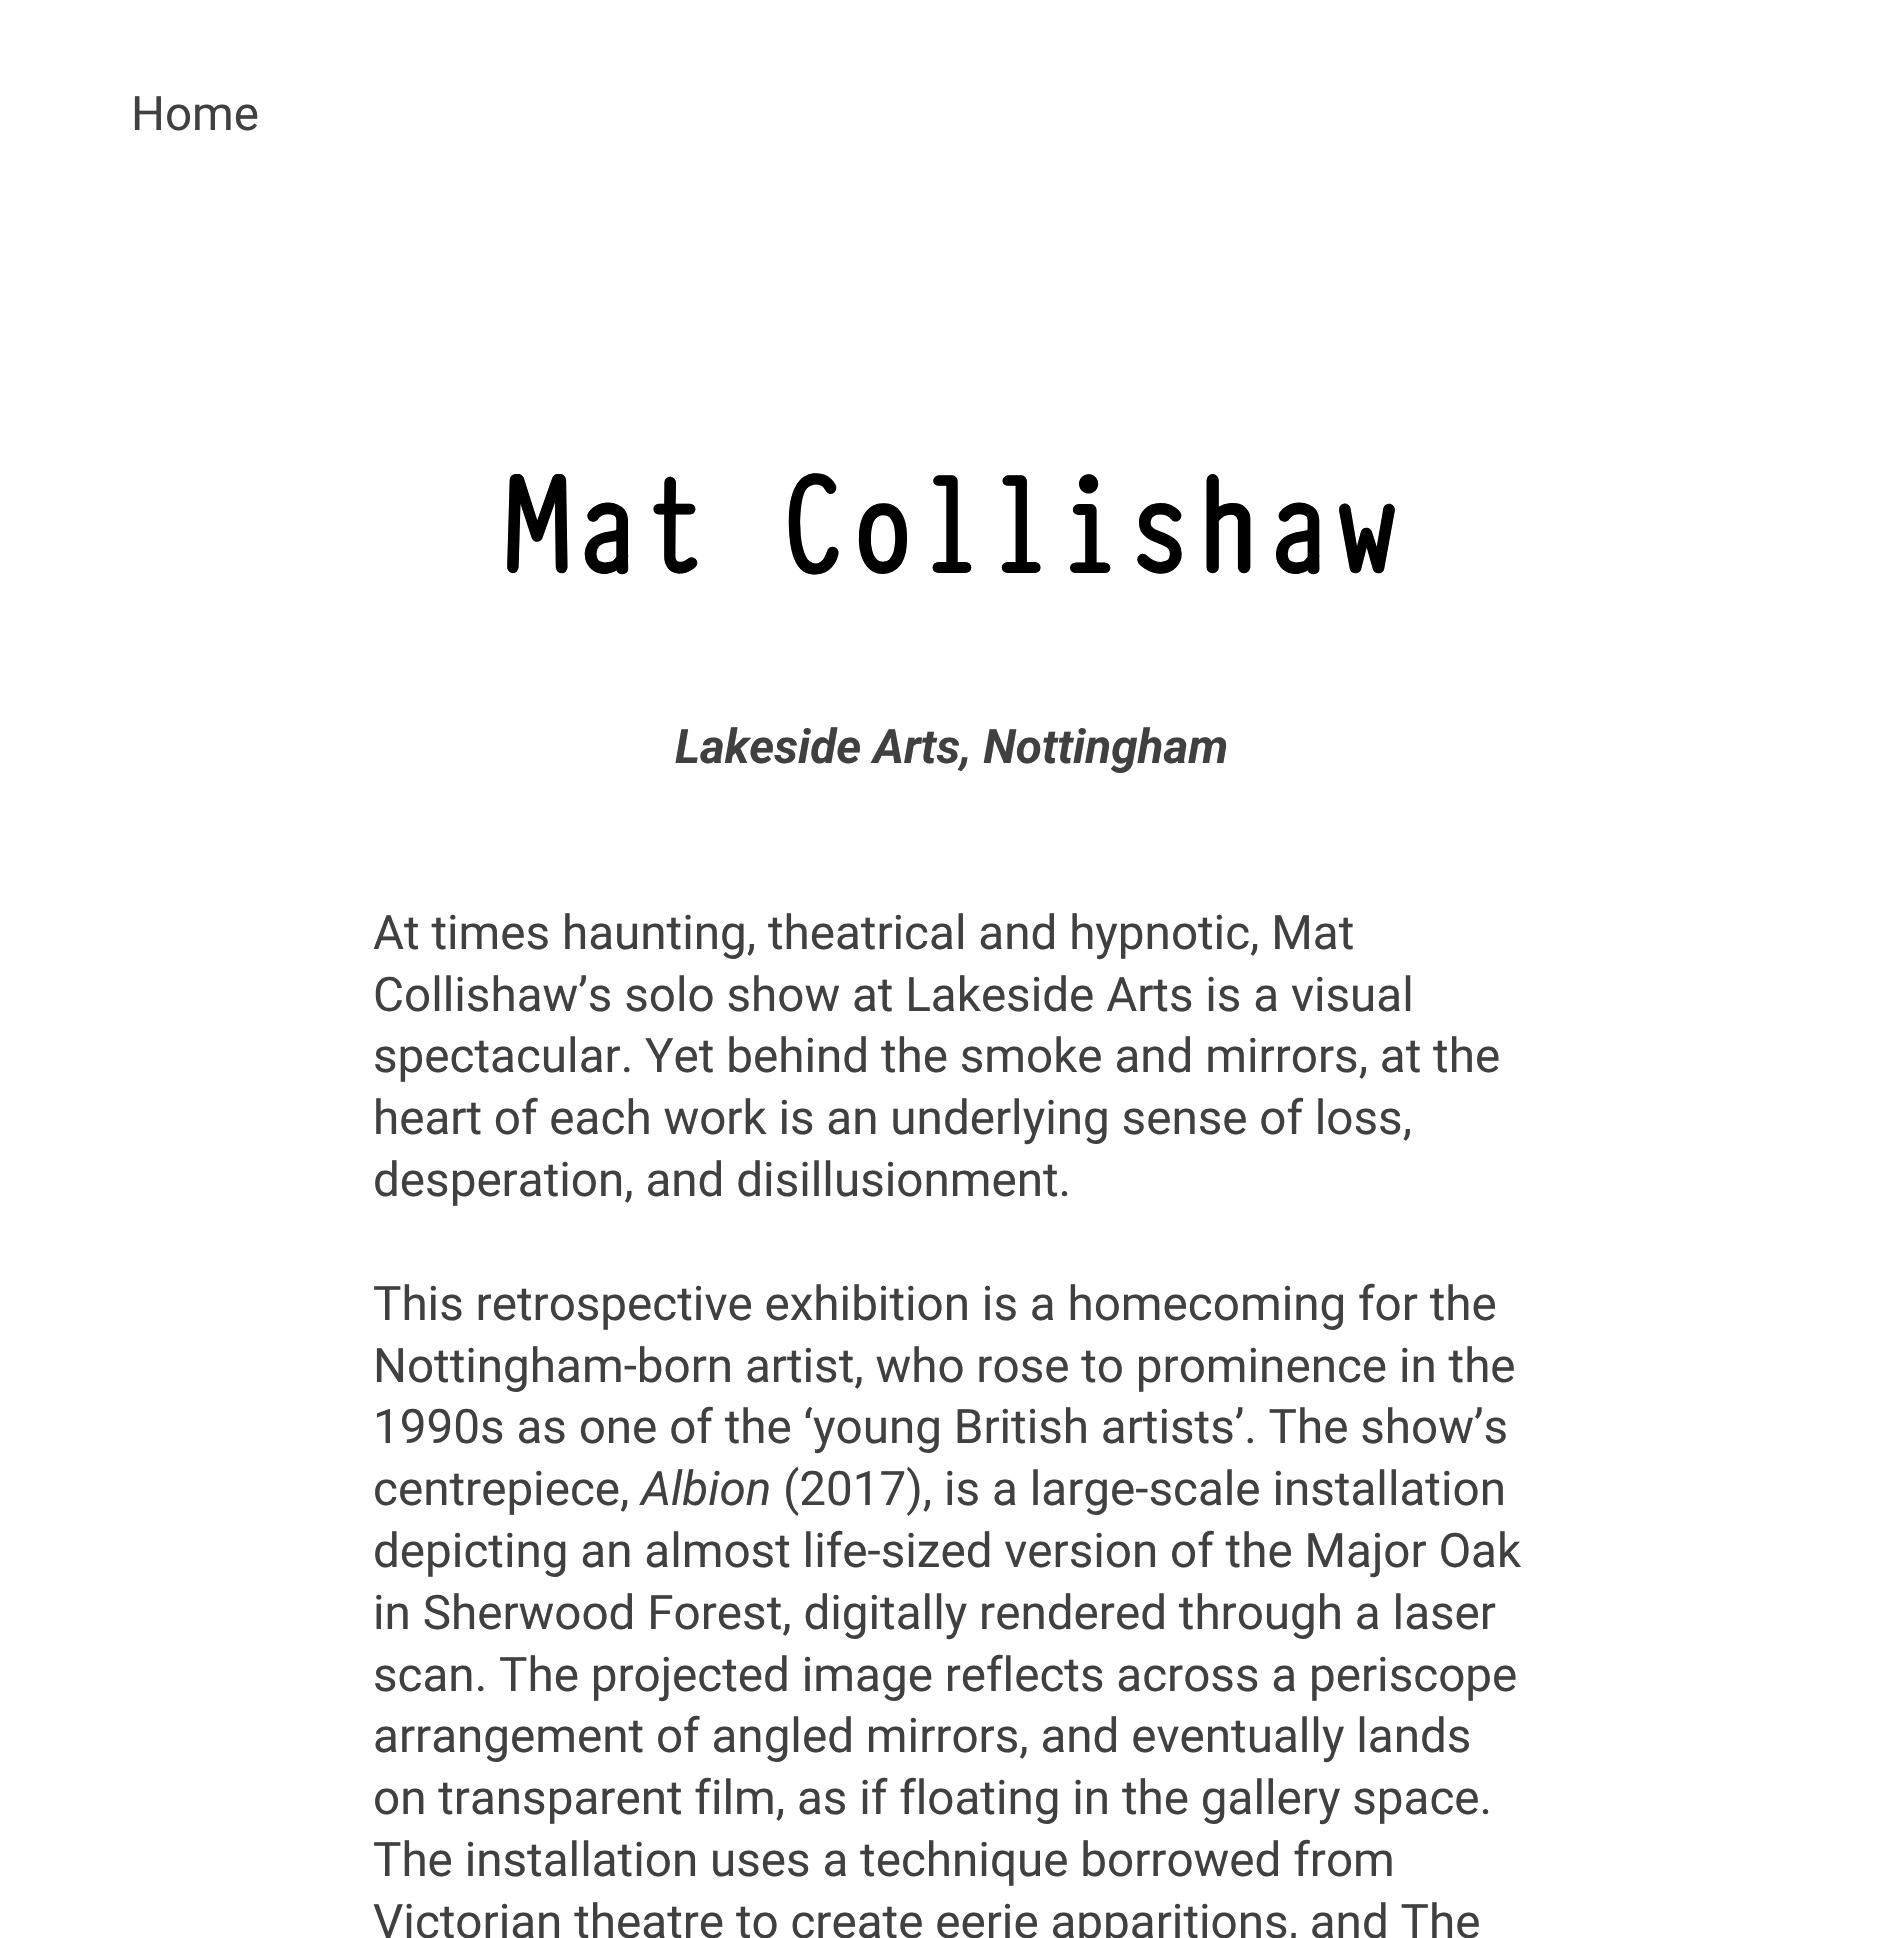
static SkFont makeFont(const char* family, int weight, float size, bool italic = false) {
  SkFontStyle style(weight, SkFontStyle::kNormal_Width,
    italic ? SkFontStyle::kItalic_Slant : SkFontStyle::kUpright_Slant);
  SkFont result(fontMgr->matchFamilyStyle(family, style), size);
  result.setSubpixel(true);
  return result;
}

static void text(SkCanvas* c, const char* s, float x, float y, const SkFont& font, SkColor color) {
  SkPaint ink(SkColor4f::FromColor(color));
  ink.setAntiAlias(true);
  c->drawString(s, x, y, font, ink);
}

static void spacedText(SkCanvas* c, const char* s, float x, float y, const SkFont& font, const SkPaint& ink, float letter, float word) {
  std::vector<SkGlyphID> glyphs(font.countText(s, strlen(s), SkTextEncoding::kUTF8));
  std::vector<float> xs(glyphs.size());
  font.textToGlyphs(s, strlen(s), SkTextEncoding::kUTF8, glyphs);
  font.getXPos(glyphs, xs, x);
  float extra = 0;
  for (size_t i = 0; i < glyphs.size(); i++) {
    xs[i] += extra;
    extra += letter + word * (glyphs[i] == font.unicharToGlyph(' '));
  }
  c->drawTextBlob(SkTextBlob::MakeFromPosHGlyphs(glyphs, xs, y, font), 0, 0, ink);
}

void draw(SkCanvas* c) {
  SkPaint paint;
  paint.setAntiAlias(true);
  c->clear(0xffffffff);
  SkFont face1 = makeFont("Roboto", 400, 47.6f);
  text(c, "Home", 131, 130, face1, 0xff404040);
  SkFont face2 = makeFont("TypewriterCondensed", 700, 156.75f);
  paint.setColor(0xff000000);
  spacedText(c, "Mat Collishaw", 502, 573, face2, paint, -1.4f, 0);
  SkFont face3 = makeFont("Roboto", 700, 47.6f, true);
  text(c, "Lakeside Arts, Nottingham", 675, 763, face3, 0xff404040);
  text(c, "At times haunting, theatrical and hypnotic, Mat", 373, 949, face1, 0xff404040);
  text(c, "Collishaw’s solo show at Lakeside Arts is a visual", 373, 1011, face1, 0xff404040);
  text(c, "spectacular. Yet behind the smoke and mirrors, at the", 373, 1072, face1, 0xff404040);
  text(c, "heart of each work is an underlying sense of loss,", 373, 1134, face1, 0xff404040);
  text(c, "desperation, and disillusionment.", 373, 1196, face1, 0xff404040);
  text(c, "This retrospective exhibition is a homecoming for the", 373, 1320, face1, 0xff404040);
  text(c, "Nottingham-born artist, who rose to prominence in the", 373, 1382, face1, 0xff404040);
  text(c, "1990s as one of the ‘young British artists’. The show’s", 373, 1443, face1, 0xff404040);
  text(c, "centrepiece,", 373, 1505, face1, 0xff404040);
  SkFont face4 = makeFont("Roboto", 400, 47.6f, true);
  text(c, "Albion", 641, 1505, face4, 0xff404040);
  text(c, "(2017), is a large-scale installation", 783, 1505, face1, 0xff404040);
  text(c, "depicting an almost life-sized version of the Major Oak", 373, 1567, face1, 0xff404040);
  text(c, "in Sherwood Forest, digitally rendered through a laser", 373, 1629, face1, 0xff404040);
  text(c, "scan. The projected image reflects across a periscope", 373, 1691, face1, 0xff404040);
  text(c, "arrangement of angled mirrors, and eventually lands", 373, 1752, face1, 0xff404040);
  text(c, "on transparent film, as if floating in the gallery space.", 373, 1814, face1, 0xff404040);
  text(c, "The installation uses a technique borrowed from", 373, 1876, face1, 0xff404040);
  text(c, "Victorian theatre to create eerie apparitions, and The", 373, 1938, face1, 0xff404040);
}
